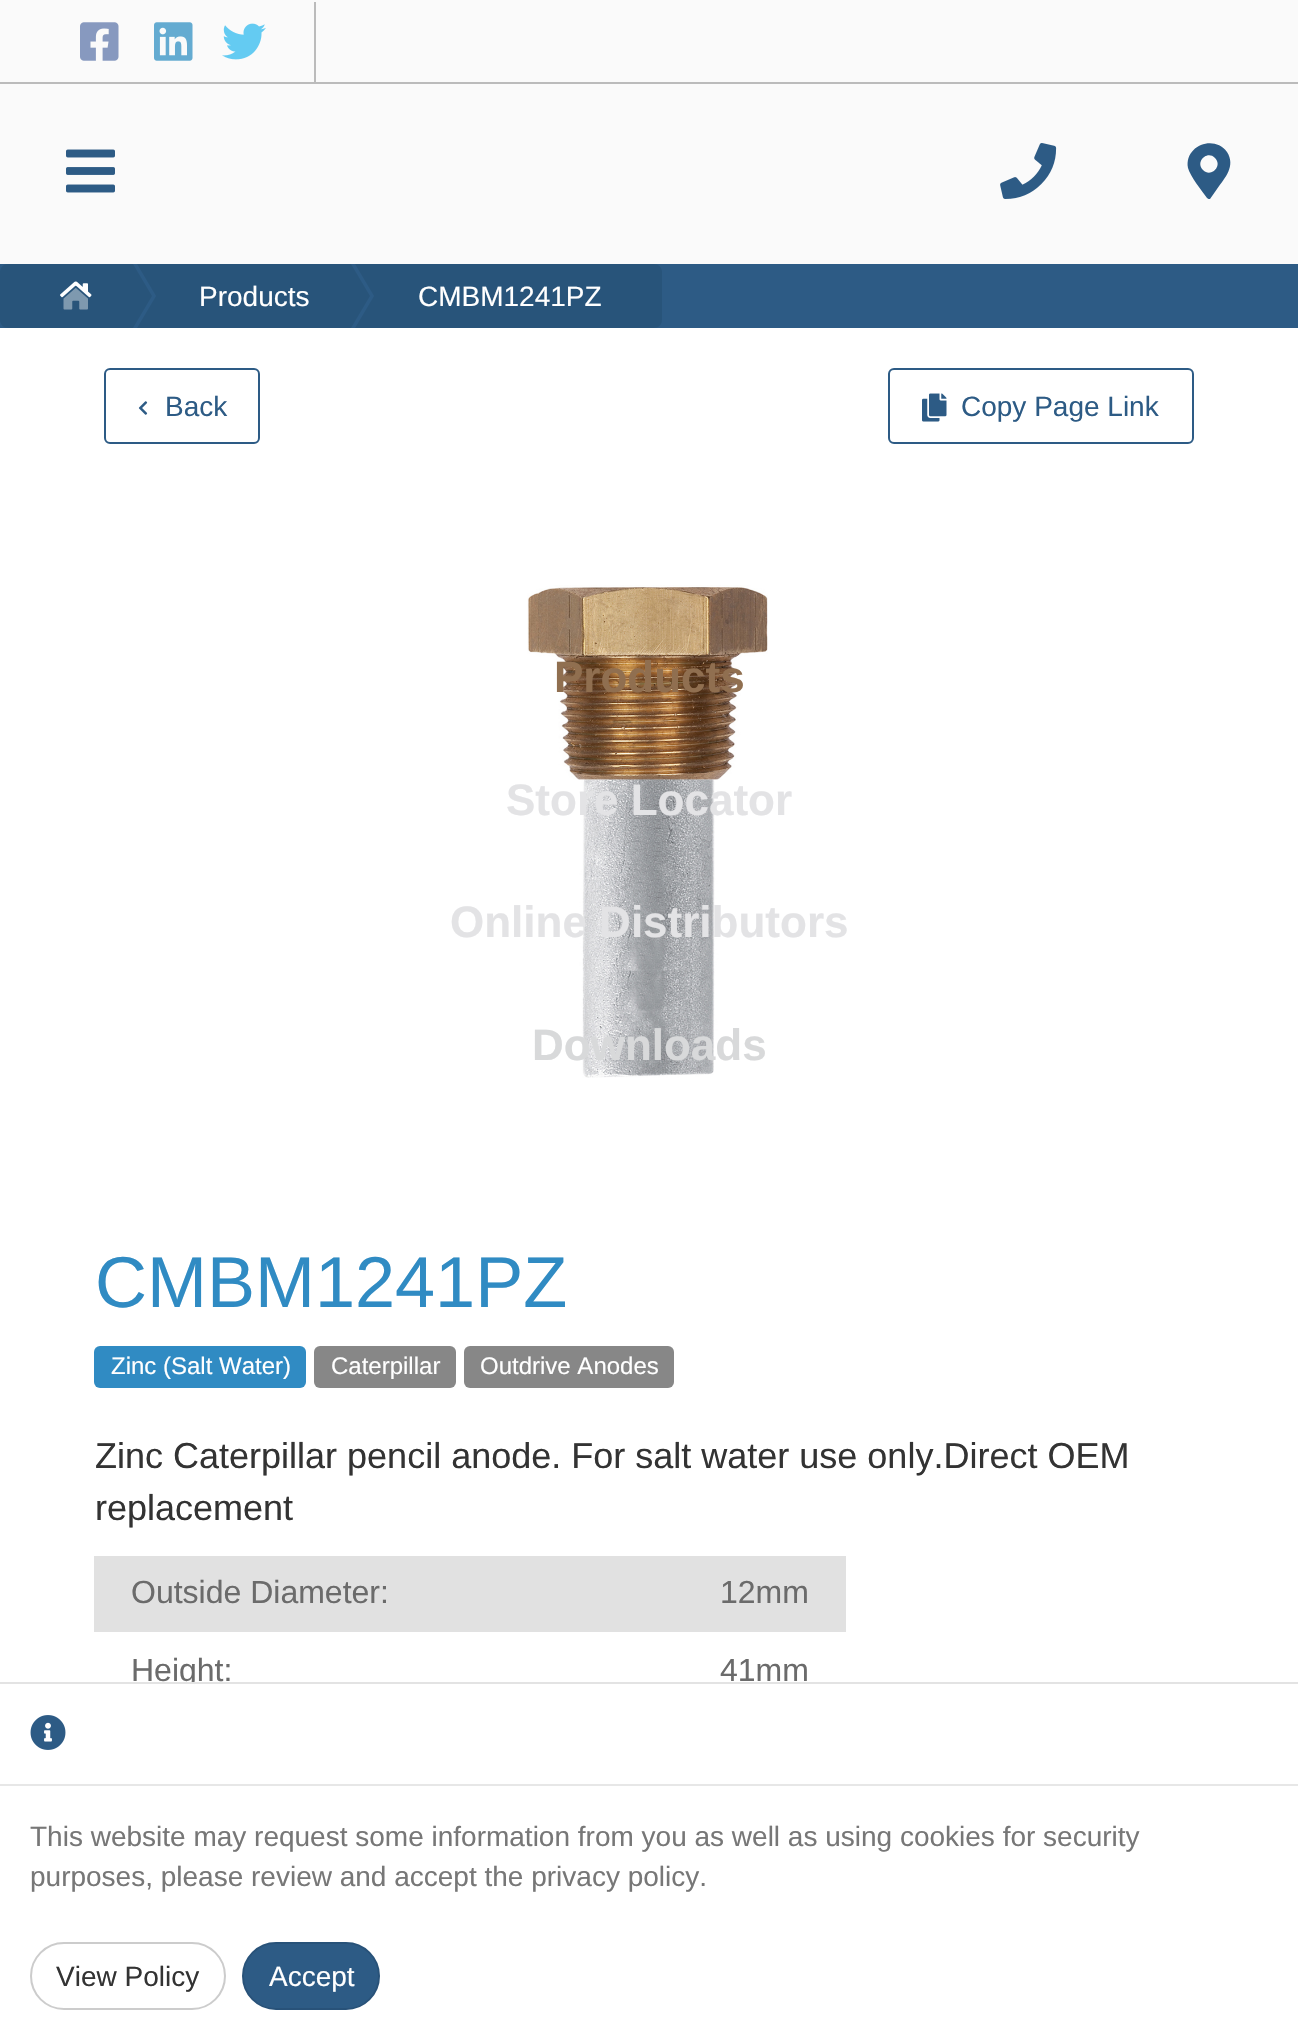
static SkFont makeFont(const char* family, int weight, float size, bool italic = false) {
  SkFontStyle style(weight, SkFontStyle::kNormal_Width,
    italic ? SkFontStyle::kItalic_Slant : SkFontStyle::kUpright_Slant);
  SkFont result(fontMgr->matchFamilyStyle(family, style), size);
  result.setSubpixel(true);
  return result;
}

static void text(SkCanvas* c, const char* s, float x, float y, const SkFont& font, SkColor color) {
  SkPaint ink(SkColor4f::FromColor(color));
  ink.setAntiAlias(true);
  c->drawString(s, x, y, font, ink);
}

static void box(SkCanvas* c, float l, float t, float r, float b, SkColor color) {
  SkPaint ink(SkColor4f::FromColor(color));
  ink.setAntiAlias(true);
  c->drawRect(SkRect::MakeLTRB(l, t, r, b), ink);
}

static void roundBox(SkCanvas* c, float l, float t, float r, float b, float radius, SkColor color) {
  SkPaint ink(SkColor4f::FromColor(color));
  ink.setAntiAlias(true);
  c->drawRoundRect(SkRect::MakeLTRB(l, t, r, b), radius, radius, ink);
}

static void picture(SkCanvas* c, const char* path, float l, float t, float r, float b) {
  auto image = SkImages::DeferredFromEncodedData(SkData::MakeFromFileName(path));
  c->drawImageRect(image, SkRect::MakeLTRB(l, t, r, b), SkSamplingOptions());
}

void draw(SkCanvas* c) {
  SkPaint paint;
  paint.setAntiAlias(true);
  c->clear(0xffffffff);
  box(c, 0, 0, 1298, 264, 0xfffafafa);
  box(c, 0, 82, 1298, 84, 0xffbbbbbb);
  box(c, 314, 2, 316, 84, 0xffbbbbbb);
  picture(c, "img_01.png", 80, 22, 119, 61);
  picture(c, "img_02.png", 154, 22, 193, 61);
  picture(c, "img_03.png", 222, 23, 266, 60);
  picture(c, "img_04.png", 66, 149, 115, 193);
  picture(c, "img_05.png", 1000, 143, 1057, 199);
  paint.setColor(0xff2d5b85);
  c->drawPath(SkPathBuilder().moveTo(1207, 198).cubicTo(1202, 191, 1190, 176, 1188, 168).cubicTo(1184, 146, 1214, 134, 1227, 152).cubicTo(1236, 166, 1225, 178, 1217, 189).lineTo(1210, 199).cubicTo(1209, 199, 1208, 199, 1207, 198).close().moveTo(1203, 170).cubicTo(1211, 178, 1223, 166, 1215, 158).cubicTo(1207, 150, 1195, 162, 1203, 170).close().detach(), paint);
  box(c, 0, 264, 1298, 328, 0xff2d5b85);
  paint.setColor(0xff28547a);
  c->drawPath(SkPathBuilder().moveTo(8, 264).lineTo(92, 264).lineTo(92, 328).lineTo(8, 328).cubicTo(3.5f, 328, 0, 324.5f, 0, 320).lineTo(0, 272).cubicTo(0, 267.5f, 3.5f, 264, 8, 264).close().detach(), paint);
  box(c, 137, 264, 310, 328, 0xff28547a);
  paint.setColor(0xff2d5b85);
  c->drawPath(SkPathBuilder().moveTo(137, 264).lineTo(156, 296).lineTo(137, 328).lineTo(96, 328).lineTo(96, 264).close().detach(), paint);
  paint.setColor(0xff28547a);
  c->drawPath(SkPathBuilder().moveTo(133, 264).lineTo(152, 296).lineTo(133, 328).lineTo(92, 328).lineTo(92, 264).close().detach(), paint);
  picture(c, "img_06.png", 60, 281, 92, 298);
  picture(c, "img_07.png", 63, 288, 88, 310);
  c->drawPath(SkPathBuilder().moveTo(318, 264).lineTo(654, 264).cubicTo(658.5f, 264, 662, 267.5f, 662, 272).lineTo(662, 320).cubicTo(662, 324.5f, 658.5f, 328, 654, 328).lineTo(318, 328).close().detach(), paint);
  paint.setColor(0xff2d5b85);
  c->drawPath(SkPathBuilder().moveTo(355, 264).lineTo(374, 296).lineTo(355, 328).lineTo(314, 328).lineTo(314, 264).close().detach(), paint);
  paint.setColor(0xff28547a);
  c->drawPath(SkPathBuilder().moveTo(351, 264).lineTo(370, 296).lineTo(351, 328).lineTo(310, 328).lineTo(310, 264).close().detach(), paint);
  SkFont face1 = makeFont("Liberation Sans", 400, 28);
  text(c, "Products", 199, 306, face1, 0xffffffff);
  text(c, "CMBM1241PZ", 418, 306, face1, 0xffffffff);
  paint.setStyle(SkPaint::kStroke_Style);
  paint.setStrokeWidth(2);
  paint.setColor(0xff2d5b85);
  c->drawRoundRect(SkRect::MakeLTRB(105, 369, 259, 443), 5, 5, paint);
  picture(c, "img_08.png", 138, 401, 148, 415);
  text(c, "Back", 165, 416, face1, 0xff2d5b85);
  c->drawRoundRect(SkRect::MakeLTRB(889, 369, 1193, 443), 5, 5, paint);
  picture(c, "img_09.png", 922, 393, 947, 422);
  text(c, "Copy Page Link", 961, 416, face1, 0xff2d5b85);
  picture(c, "img_10.png", 527, 585, 768, 1078);
  SkFont face2 = makeFont("Liberation Sans", 400, 72);
  text(c, "CMBM1241PZ", 95, 1307, face2, 0xff308bc3);
  roundBox(c, 94, 1346, 306, 1388, 6, 0xff308bc3);
  SkFont face3 = makeFont("Liberation Sans", 400, 24);
  text(c, "Zinc (Salt Water)", 111, 1374, face3, 0xffffffff);
  roundBox(c, 314, 1346, 456, 1388, 6, 0xff878787);
  text(c, "Caterpillar", 331, 1374, face3, 0xffffffff);
  roundBox(c, 464, 1346, 674, 1388, 6, 0xff878787);
  text(c, "Outdrive Anodes", 480, 1374, face3, 0xffffffff);
  SkFont face4 = makeFont("Liberation Sans", 400, 36);
  text(c, "Zinc Caterpillar pencil anode. For salt water use only.Direct OEM", 95, 1468, face4, 0xff333333);
  text(c, "replacement", 95, 1520, face4, 0xff333333);
  box(c, 94, 1556, 846, 1632, 0xffe1e1e1);
  SkFont face5 = makeFont("Liberation Sans", 400, 32);
  text(c, "Outside Diameter:", 131, 1603, face5, 0xff6b6b6b);
  text(c, "12mm", 720, 1603, face5, 0xff6b6b6b);
  text(c, "Height:", 131, 1681, face5, 0xff6b6b6b);
  text(c, "41mm", 720, 1681, face5, 0xff6b6b6b);
  SkFont face6 = makeFont("Liberation Sans", 700, 44);
  text(c, "Products", 554, 692, face6, 0xff906f50);
  text(c, "Store Locator", 506, 815, face6, 0xffe3e3e5);
  text(c, "Online Distributors", 450, 937, face6, 0xffe3e3e5);
  text(c, "Downloads", 532, 1060, face6, 0xffd8d9da);
  box(c, 181, 1684, 194, 1688, 0xffffffff);
  box(c, 0, 1682, 1298, 1684, 0xffe3e3e3);
  picture(c, "img_11.png", 30, 1715, 66, 1750);
  box(c, 0, 1784, 1298, 1786, 0xffe7e7e7);
  text(c, "This website may request some information from you as well as using cookies for security", 30, 1846, face1, 0xff777777);
  text(c, "purposes, please review and accept the privacy policy.", 30, 1886, face1, 0xff777777);
  paint.setColor(0xffcccccc);
  c->drawRoundRect(SkRect::MakeLTRB(31, 1943, 225, 2009), 33, 33, paint);
  text(c, "View Policy", 56, 1986, face1, 0xff333333);
  paint.setStyle(SkPaint::kFill_Style);
  paint.setColor(0xff2d5b85);
  c->drawRoundRect(SkRect::MakeLTRB(243, 1943, 379, 2009), 33, 33, paint);
  paint.setStyle(SkPaint::kStroke_Style);
  paint.setColor(0xff285279);
  c->drawRoundRect(SkRect::MakeLTRB(243, 1943, 379, 2009), 33, 33, paint);
  text(c, "Accept", 269, 1986, face1, 0xffffffff);
}
